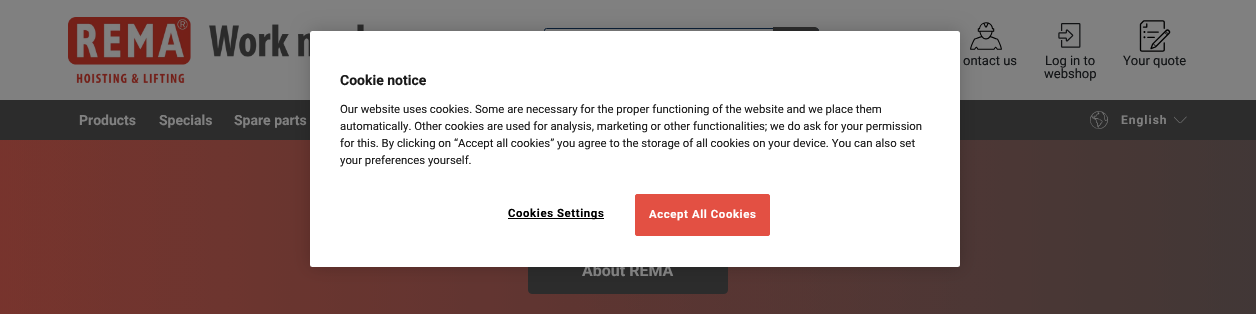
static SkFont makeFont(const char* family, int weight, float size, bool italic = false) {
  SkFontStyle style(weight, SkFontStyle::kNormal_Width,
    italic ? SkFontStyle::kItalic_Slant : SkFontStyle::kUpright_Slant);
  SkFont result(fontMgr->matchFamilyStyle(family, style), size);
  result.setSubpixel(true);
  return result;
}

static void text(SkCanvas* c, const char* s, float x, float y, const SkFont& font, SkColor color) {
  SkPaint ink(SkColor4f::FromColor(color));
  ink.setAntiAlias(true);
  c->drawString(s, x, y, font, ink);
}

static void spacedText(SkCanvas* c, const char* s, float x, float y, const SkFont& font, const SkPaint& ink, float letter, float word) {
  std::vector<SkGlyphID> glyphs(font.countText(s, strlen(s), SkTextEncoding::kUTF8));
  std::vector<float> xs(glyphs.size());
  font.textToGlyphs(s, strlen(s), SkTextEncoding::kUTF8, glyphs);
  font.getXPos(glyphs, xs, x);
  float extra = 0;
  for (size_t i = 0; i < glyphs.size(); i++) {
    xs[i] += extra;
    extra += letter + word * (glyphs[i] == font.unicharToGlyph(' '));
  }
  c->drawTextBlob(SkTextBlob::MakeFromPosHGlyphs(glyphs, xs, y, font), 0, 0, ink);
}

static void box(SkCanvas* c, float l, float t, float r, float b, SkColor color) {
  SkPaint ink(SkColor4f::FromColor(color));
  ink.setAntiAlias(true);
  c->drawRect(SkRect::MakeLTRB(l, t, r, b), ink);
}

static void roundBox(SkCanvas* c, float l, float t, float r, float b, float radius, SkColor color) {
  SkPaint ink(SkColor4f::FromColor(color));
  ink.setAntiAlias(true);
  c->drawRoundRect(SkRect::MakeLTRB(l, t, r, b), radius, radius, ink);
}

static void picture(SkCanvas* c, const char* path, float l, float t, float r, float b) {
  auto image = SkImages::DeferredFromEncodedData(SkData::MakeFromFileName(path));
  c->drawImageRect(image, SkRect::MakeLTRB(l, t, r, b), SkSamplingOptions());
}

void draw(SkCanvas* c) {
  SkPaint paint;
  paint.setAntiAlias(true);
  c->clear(0xffffffff);
  box(c, 0, 0, 1256, 100, 0xff808080);
  picture(c, "img_01.png", 68, 17, 364, 83);
  paint.setStyle(SkPaint::kStroke_Style);
  paint.setStrokeWidth(1);
  paint.setColor(0xff0b2037);
  c->drawRoundRect(SkRect::MakeLTRB(544.5f, 28.5f, 818.5f, 73.5f), 2, 2, paint);
  paint.setStyle(SkPaint::kFill_Style);
  paint.setColor(0xff2c2c2c);
  c->drawPath(SkPathBuilder().moveTo(773, 27).lineTo(814, 27).cubicTo(817, 27, 819, 29, 819, 32).lineTo(819, 68).cubicTo(819, 71, 817, 73, 814, 73).lineTo(773, 73).close().detach(), paint);
  picture(c, "img_02.png", 970, 22, 1002, 50);
  SkFont face1 = makeFont("Roboto", 400, 13);
  text(c, "ontact us", 963, 65, face1, 0xff111315);
  picture(c, "img_03.png", 1058, 23, 1081, 48);
  text(c, "Log in to", 1045, 65, face1, 0xff111315);
  text(c, "webshop", 1044, 78, face1, 0xff111315);
  picture(c, "img_04.png", 1139, 20, 1171, 52);
  text(c, "Your quote", 1123, 65, face1, 0xff111315);
  box(c, 0, 100, 1256, 140, 0xff2c2c2c);
  SkFont face2 = makeFont("Roboto", 700, 14);
  text(c, "Products", 79, 125, face2, 0xff808080);
  text(c, "Specials", 159, 125, face2, 0xff808080);
  text(c, "Spare parts", 234, 125, face2, 0xff808080);
  picture(c, "img_05.png", 1090, 111, 1108, 129);
  SkFont face3 = makeFont("Roboto", 700, 12);
  paint.setColor(0xff808080);
  spacedText(c, "English", 1121, 124, face3, paint, 1, 0);
  picture(c, "img_06.png", 1174, 116, 1187, 124);
  picture(c, "img_07.png", 0, 140, 1256, 314);
  paint.setColor(0xff2c2c2c);
  c->drawRoundRect(SkRect::MakeLTRB(528.5f, 248.5f, 727.5f, 293.5f), 3.5f, 3.5f, paint);
  paint.setStyle(SkPaint::kStroke_Style);
  c->drawRoundRect(SkRect::MakeLTRB(528.5f, 248.5f, 727.5f, 293.5f), 3.5f, 3.5f, paint);
  paint.setStyle(SkPaint::kFill_Style);
  paint.setColor(0x33000000);
  paint.setMaskFilter(SkMaskFilter::MakeBlur(kNormal_SkBlurStyle, 9));
  c->drawRoundRect(SkRect::MakeLTRB(310, 31, 960, 267), 2.5f, 2.5f, paint);
  paint.setMaskFilter(nullptr);
  SkFont face4 = makeFont("Roboto", 700, 16);
  text(c, "About REMA", 582, 276, face4, 0xff808080);
  roundBox(c, 310, 31, 960, 267, 2.5f, 0xffffffff);
  text(c, "Cookie notice", 340, 85, face2, 0xff1a1a1a);
  SkFont face5 = makeFont("Roboto", 400, 11.38f);
  text(c, "Our website uses cookies. Some are necessary for the proper functioning of the website and we place them", 340, 113, face5, 0xff1a1a1a);
  text(c, "automatically. Other cookies are used for analysis, marketing or other functionalities; we do ask for your permission", 340, 130, face5, 0xff1a1a1a);
  text(c, "for this. By clicking on “Accept all cookies” you agree to the storage of all cookies on your device. You can also set", 340, 147, face5, 0xff1a1a1a);
  text(c, "your preferences yourself.", 340, 164, face5, 0xff1a1a1a);
  box(c, 508, 218, 604, 219, 0xff000000);
  SkFont face6 = makeFont("Roboto", 700, 11.38f);
  paint.setColor(0xff000000);
  spacedText(c, "Cookies Settings", 508, 217, face6, paint, 0.6f, 0);
  paint.setColor(0xffe35043);
  c->drawRoundRect(SkRect::MakeLTRB(635.5f, 194.5f, 769.5f, 235.5f), 1.5f, 1.5f, paint);
  paint.setStyle(SkPaint::kStroke_Style);
  c->drawRoundRect(SkRect::MakeLTRB(635.5f, 194.5f, 769.5f, 235.5f), 1.5f, 1.5f, paint);
  paint.setStyle(SkPaint::kFill_Style);
  paint.setColor(0xffffffff);
  spacedText(c, "Accept All Cookies", 649, 218, face6, paint, 0.6f, 0);
}
